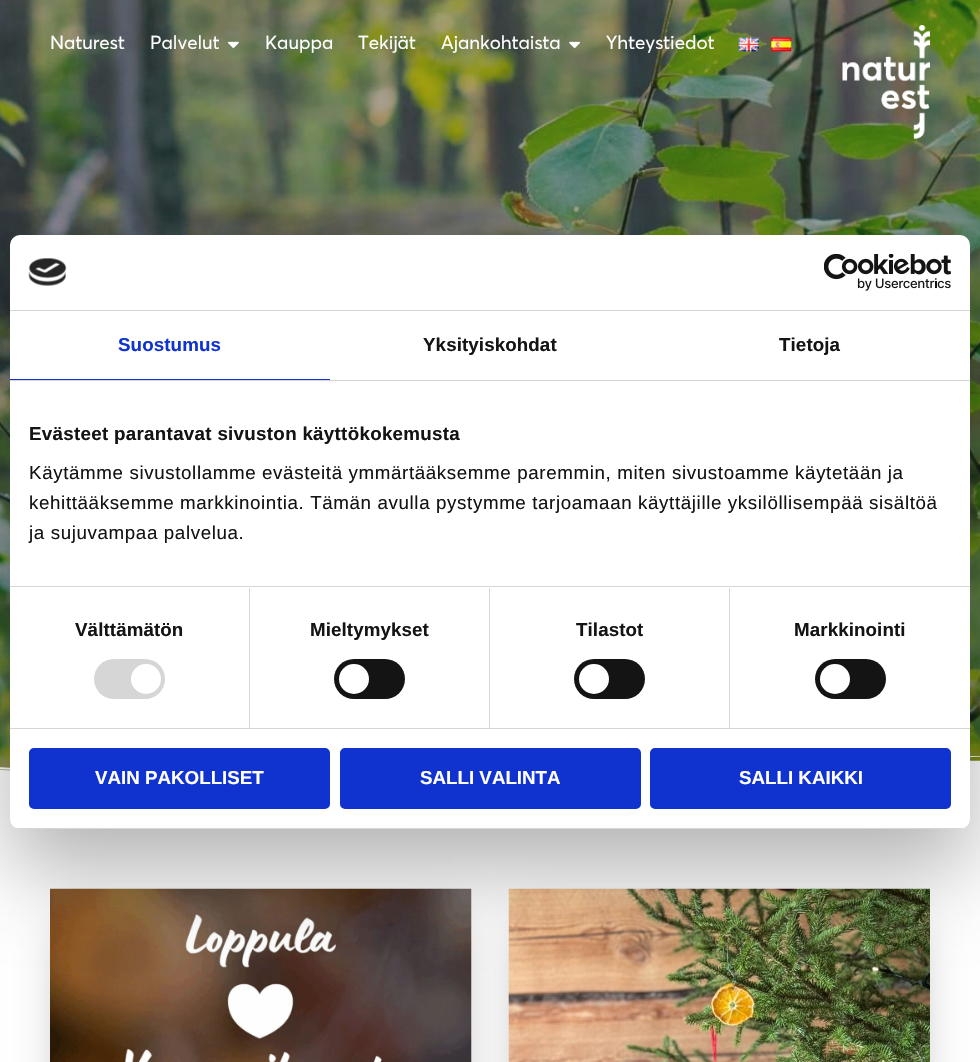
static SkFont makeFont(const char* family, int weight, float size, bool italic = false) {
  SkFontStyle style(weight, SkFontStyle::kNormal_Width,
    italic ? SkFontStyle::kItalic_Slant : SkFontStyle::kUpright_Slant);
  SkFont result(fontMgr->matchFamilyStyle(family, style), size);
  result.setSubpixel(true);
  return result;
}

static void text(SkCanvas* c, const char* s, float x, float y, const SkFont& font, SkColor color) {
  SkPaint ink(SkColor4f::FromColor(color));
  ink.setAntiAlias(true);
  c->drawString(s, x, y, font, ink);
}

static void spacedText(SkCanvas* c, const char* s, float x, float y, const SkFont& font, const SkPaint& ink, float letter, float word) {
  std::vector<SkGlyphID> glyphs(font.countText(s, strlen(s), SkTextEncoding::kUTF8));
  std::vector<float> xs(glyphs.size());
  font.textToGlyphs(s, strlen(s), SkTextEncoding::kUTF8, glyphs);
  font.getXPos(glyphs, xs, x);
  float extra = 0;
  for (size_t i = 0; i < glyphs.size(); i++) {
    xs[i] += extra;
    extra += letter + word * (glyphs[i] == font.unicharToGlyph(' '));
  }
  c->drawTextBlob(SkTextBlob::MakeFromPosHGlyphs(glyphs, xs, y, font), 0, 0, ink);
}

static void box(SkCanvas* c, float l, float t, float r, float b, SkColor color) {
  SkPaint ink(SkColor4f::FromColor(color));
  ink.setAntiAlias(true);
  c->drawRect(SkRect::MakeLTRB(l, t, r, b), ink);
}

static void roundBox(SkCanvas* c, float l, float t, float r, float b, float radius, SkColor color) {
  SkPaint ink(SkColor4f::FromColor(color));
  ink.setAntiAlias(true);
  c->drawRoundRect(SkRect::MakeLTRB(l, t, r, b), radius, radius, ink);
}

static void picture(SkCanvas* c, const char* path, float l, float t, float r, float b) {
  auto image = SkImages::DeferredFromEncodedData(SkData::MakeFromFileName(path));
  c->drawImageRect(image, SkRect::MakeLTRB(l, t, r, b), SkSamplingOptions());
}

void draw(SkCanvas* c) {
  SkPaint paint;
  paint.setAntiAlias(true);
  c->clear(0xffffffff);
  picture(c, "img_01.png", 0, 0, 980, 771);
  picture(c, "img_02.png", 0, 756, 980, 778);
  paint.setColor(0x59000000);
  paint.setMaskFilter(SkMaskFilter::MakeBlur(kNormal_SkBlurStyle, 25));
  c->drawRect(SkRect::MakeLTRB(69, 926, 453, 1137), paint);
  paint.setMaskFilter(nullptr);
  paint.setMaskFilter(SkMaskFilter::MakeBlur(kNormal_SkBlurStyle, 25));
  c->drawRect(SkRect::MakeLTRB(528, 926, 911, 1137), paint);
  paint.setMaskFilter(nullptr);
  picture(c, "img_03.png", 50, 888, 472, 1062);
  picture(c, "img_04.png", 508, 888, 930, 1062);
  SkFont face1 = makeFont("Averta", 400, 18.75f);
  text(c, "Naturest", 50, 49, face1, 0xffffffff);
  text(c, "Palvelut", 150, 49, face1, 0xffffffff);
  picture(c, "img_05.png", 227, 41, 239, 48);
  text(c, "Kauppa", 265, 49, face1, 0xffffffff);
  text(c, "Tekijät", 358, 49, face1, 0xffffffff);
  text(c, "Ajankohtaista", 441, 49, face1, 0xffffffff);
  picture(c, "img_06.png", 569, 41, 580, 48);
  text(c, "Yhteystiedot", 606, 49, face1, 0xffffffff);
  picture(c, "img_07.png", 738, 37, 759, 52);
  picture(c, "img_08.png", 771, 37, 792, 52);
  picture(c, "img_09.png", 842, 25, 930, 139);
  paint.setColor(0x4d000000);
  paint.setMaskFilter(SkMaskFilter::MakeBlur(kNormal_SkBlurStyle, 42.5f));
  c->drawRoundRect(SkRect::MakeLTRB(10, 275, 970, 869), 10, 10, paint);
  paint.setMaskFilter(nullptr);
  roundBox(c, 10, 235, 970, 829, 10, 0xffffffff);
  box(c, 10, 310, 970, 311, 0xffd6d6d6);
  picture(c, "img_10.png", 28, 258, 67, 286);
  picture(c, "img_11.png", 824, 254, 951, 291);
  box(c, 10, 380, 970, 381, 0xffd6d6d6);
  box(c, 10, 379, 330, 380, 0xff1032cf);
  SkFont face2 = makeFont("Liberation Sans", 700, 18.75f);
  paint.setColor(0xff1032cf);
  spacedText(c, "Suostumus", 118, 351, face2, paint, 0.1f, 0);
  paint.setColor(0xff141414);
  spacedText(c, "Yksityiskohdat", 423, 351, face2, paint, 0.1f, 0);
  spacedText(c, "Tietoja", 779, 351, face2, paint, 0.1f, 0);
  box(c, 10, 586, 970, 587, 0xffd6d6d6);
  spacedText(c, "Evästeet parantavat sivuston käyttökokemusta", 29, 440, face2, paint, 0.3f, 0);
  SkFont face3 = makeFont("Liberation Sans", 400, 18.75f);
  spacedText(c, "Käytämme sivustollamme evästeitä ymmärtääksemme paremmin, miten sivustoamme käytetään ja", 29, 479, face3, paint, 0.62f, 0);
  spacedText(c, "kehittääksemme markkinointia. Tämän avulla pystymme tarjoamaan käyttäjille yksilöllisempää sisältöä", 29, 509, face3, paint, 0.62f, 0);
  spacedText(c, "ja sujuvampaa palvelua.", 29, 539, face3, paint, 0.62f, 0);
  box(c, 10, 728, 970, 729, 0xffd6d6d6);
  box(c, 249, 588, 250, 728, 0xffd6d6d6);
  spacedText(c, "Välttämätön", 75, 636, face2, paint, 0.1f, 0);
  roundBox(c, 94, 659, 165, 699, 20, 0xffd6d6d6);
  paint.setColor(0xffffffff);
  c->drawCircle(146, 679, 15, paint);
  box(c, 489, 588, 490, 728, 0xffd6d6d6);
  paint.setColor(0xff141414);
  spacedText(c, "Mieltymykset", 310, 636, face2, paint, 0.1f, 0);
  roundBox(c, 334, 659, 405, 699, 20, 0xff141414);
  paint.setColor(0xffffffff);
  c->drawCircle(354, 679, 15, paint);
  box(c, 729, 588, 730, 728, 0xffd6d6d6);
  paint.setColor(0xff141414);
  spacedText(c, "Tilastot", 576, 636, face2, paint, 0.1f, 0);
  roundBox(c, 574, 659, 645, 699, 20, 0xff141414);
  paint.setColor(0xffffffff);
  c->drawCircle(594, 679, 15, paint);
  paint.setColor(0xff141414);
  spacedText(c, "Markkinointi", 794, 636, face2, paint, 0.1f, 0);
  roundBox(c, 815, 659, 886, 699, 20, 0xff141414);
  paint.setColor(0xffffffff);
  c->drawCircle(835, 679, 15, paint);
  c->save();
  c->clipPath(SkPathBuilder().moveTo(20, 235).lineTo(960, 235).cubicTo(965.5f, 235, 970, 239.5f, 970, 245).lineTo(970, 819).cubicTo(970, 824.5f, 965.5f, 829, 960, 829).lineTo(20, 829).cubicTo(14.5f, 829, 10, 824.5f, 10, 819).lineTo(10, 245).cubicTo(10, 239.5f, 14.5f, 235, 20, 235).close().detach(), true);
  box(c, 10, 828, 970, 829, 0xffd6d6d6);
  c->restore();
  paint.setColor(0xff1032cf);
  c->drawRoundRect(SkRect::MakeLTRB(30.5f, 749.5f, 328.5f, 807.5f), 3.5f, 3.5f, paint);
  paint.setStyle(SkPaint::kStroke_Style);
  paint.setStrokeWidth(3);
  c->drawRoundRect(SkRect::MakeLTRB(30.5f, 749.5f, 328.5f, 807.5f), 3.5f, 3.5f, paint);
  text(c, "VAIN PAKOLLISET", 95, 784, face2, 0xffffffff);
  paint.setStyle(SkPaint::kFill_Style);
  c->drawRoundRect(SkRect::MakeLTRB(341.5f, 749.5f, 639.5f, 807.5f), 3.5f, 3.5f, paint);
  paint.setStyle(SkPaint::kStroke_Style);
  c->drawRoundRect(SkRect::MakeLTRB(341.5f, 749.5f, 639.5f, 807.5f), 3.5f, 3.5f, paint);
  text(c, "SALLI VALINTA", 420, 784, face2, 0xffffffff);
  paint.setStyle(SkPaint::kFill_Style);
  c->drawRoundRect(SkRect::MakeLTRB(651.5f, 749.5f, 949.5f, 807.5f), 3.5f, 3.5f, paint);
  paint.setStyle(SkPaint::kStroke_Style);
  c->drawRoundRect(SkRect::MakeLTRB(651.5f, 749.5f, 949.5f, 807.5f), 3.5f, 3.5f, paint);
  text(c, "SALLI KAIKKI", 739, 784, face2, 0xffffffff);
}
